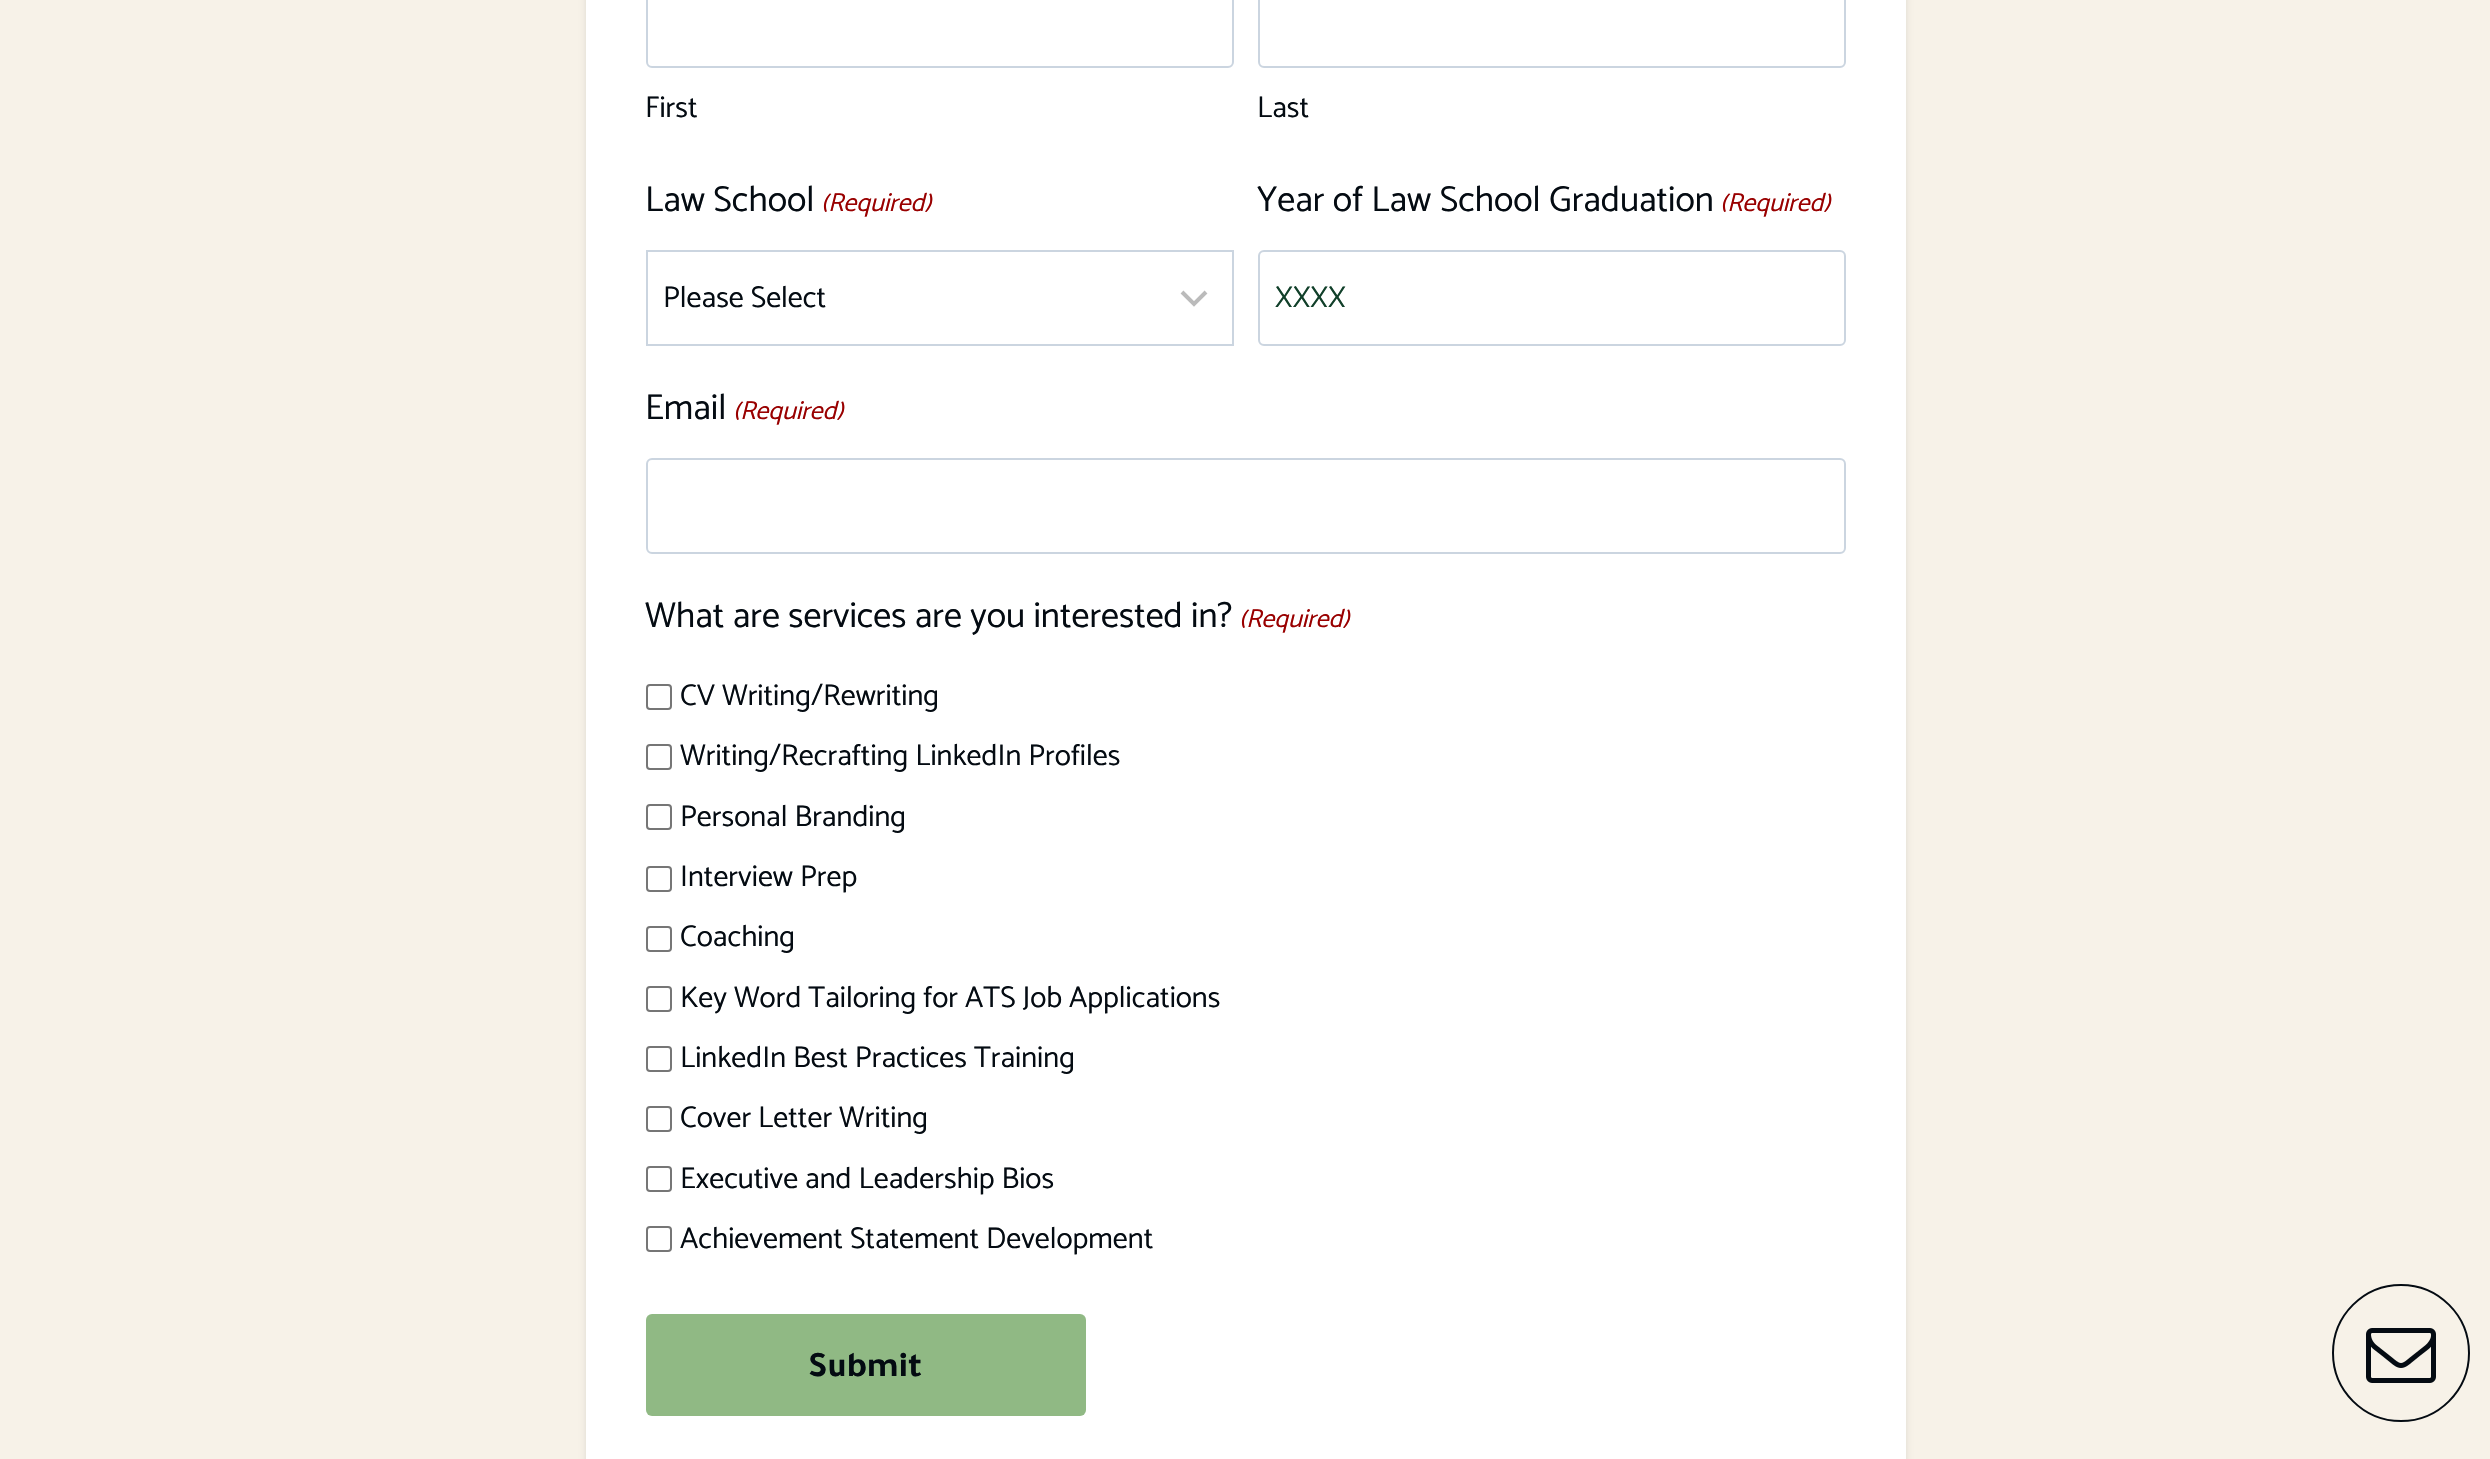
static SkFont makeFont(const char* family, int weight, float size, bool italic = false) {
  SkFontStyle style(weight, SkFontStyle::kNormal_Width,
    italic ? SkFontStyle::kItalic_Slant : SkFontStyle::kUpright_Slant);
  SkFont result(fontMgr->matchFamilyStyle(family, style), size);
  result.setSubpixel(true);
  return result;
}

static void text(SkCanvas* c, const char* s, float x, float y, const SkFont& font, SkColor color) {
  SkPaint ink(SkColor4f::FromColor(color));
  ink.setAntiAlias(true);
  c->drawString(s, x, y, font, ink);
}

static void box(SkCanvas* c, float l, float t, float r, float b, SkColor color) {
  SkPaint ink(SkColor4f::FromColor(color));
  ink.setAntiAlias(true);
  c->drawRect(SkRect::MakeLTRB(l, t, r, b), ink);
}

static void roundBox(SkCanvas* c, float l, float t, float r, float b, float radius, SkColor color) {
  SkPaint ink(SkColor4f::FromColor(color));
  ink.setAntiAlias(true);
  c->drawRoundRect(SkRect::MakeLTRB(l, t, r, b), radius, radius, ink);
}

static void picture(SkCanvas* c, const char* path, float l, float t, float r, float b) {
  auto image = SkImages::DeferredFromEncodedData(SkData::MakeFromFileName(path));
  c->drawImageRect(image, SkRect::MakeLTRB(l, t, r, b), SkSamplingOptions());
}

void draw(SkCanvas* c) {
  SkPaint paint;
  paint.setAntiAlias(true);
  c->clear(0xfff7f2e8);
  paint.setColor(0x1a000000);
  paint.setMaskFilter(SkMaskFilter::MakeBlur(kNormal_SkBlurStyle, 3));
  c->drawRoundRect(SkRect::MakeLTRB(586, -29, 1906, 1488), 20, 20, paint);
  paint.setMaskFilter(nullptr);
  box(c, 586, 0, 1906, 1459, 0xffffffff);
  paint.setStyle(SkPaint::kStroke_Style);
  paint.setStrokeWidth(2);
  paint.setColor(0xffcbd5e0);
  c->drawRoundRect(SkRect::MakeLTRB(647, -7, 1233, 67), 5, 5, paint);
  SkFont face1 = makeFont("Catamaran", 400, 30);
  text(c, "First", 645, 117, face1, 0xff040b12);
  c->drawRoundRect(SkRect::MakeLTRB(1259, -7, 1845, 67), 5, 5, paint);
  text(c, "Last", 1257, 117, face1, 0xff040b12);
  SkFont face2 = makeFont("Catamaran", 400, 36);
  text(c, "Law School", 645, 211, face2, 0xff040b12);
  SkFont face3 = makeFont("Catamaran", 400, 26, true);
  text(c, "(Required)", 821, 211, face3, 0xff990000);
  paint.setStrokeWidth(4);
  paint.setColor(0xffbbbbbb);
  c->drawPath(SkPathBuilder().moveTo(1182, 292).lineTo(1194, 304).lineTo(1206, 292).detach(), paint);
  paint.setStrokeWidth(2);
  paint.setColor(0xffcbd5e0);
  c->drawRect(SkRect::MakeLTRB(647, 251, 1233, 345), paint);
  text(c, "Please Select", 663, 307, face1, 0xff040b12);
  text(c, "Year of Law School Graduation", 1257, 211, face2, 0xff040b12);
  text(c, "(Required)", 1720, 211, face3, 0xff990000);
  c->drawRoundRect(SkRect::MakeLTRB(1259, 251, 1845, 345), 5, 5, paint);
  text(c, "XXXX", 1275, 307, face1, 0xff11402a);
  text(c, "Email", 645, 419, face2, 0xff040b12);
  text(c, "(Required)", 733, 419, face3, 0xff990000);
  c->drawRoundRect(SkRect::MakeLTRB(647, 459, 1845, 553), 5, 5, paint);
  text(c, "What are services are you interested in?", 645, 627, face2, 0xff040b12);
  text(c, "(Required)", 1239, 627, face3, 0xff990000);
  paint.setColor(0xff767676);
  c->drawRoundRect(SkRect::MakeLTRB(647, 685, 671, 709), 3, 3, paint);
  text(c, "CV Writing/Rewriting", 680, 705, face1, 0xff040b12);
  c->drawRoundRect(SkRect::MakeLTRB(647, 745, 671, 769), 3, 3, paint);
  text(c, "Writing/Recrafting LinkedIn Profiles", 680, 765, face1, 0xff040b12);
  c->drawRoundRect(SkRect::MakeLTRB(647, 805, 671, 829), 3, 3, paint);
  text(c, "Personal Branding", 680, 826, face1, 0xff040b12);
  c->drawRoundRect(SkRect::MakeLTRB(647, 867, 671, 891), 3, 3, paint);
  text(c, "Interview Prep", 680, 886, face1, 0xff040b12);
  c->drawRoundRect(SkRect::MakeLTRB(647, 927, 671, 951), 3, 3, paint);
  text(c, "Coaching", 680, 946, face1, 0xff040b12);
  c->drawRoundRect(SkRect::MakeLTRB(647, 987, 671, 1011), 3, 3, paint);
  text(c, "Key Word Tailoring for ATS Job Applications", 680, 1007, face1, 0xff040b12);
  c->drawRoundRect(SkRect::MakeLTRB(647, 1047, 671, 1071), 3, 3, paint);
  text(c, "LinkedIn Best Practices Training", 680, 1067, face1, 0xff040b12);
  c->drawRoundRect(SkRect::MakeLTRB(647, 1107, 671, 1131), 3, 3, paint);
  text(c, "Cover Letter Writing", 680, 1127, face1, 0xff040b12);
  c->drawRoundRect(SkRect::MakeLTRB(647, 1167, 671, 1191), 3, 3, paint);
  text(c, "Executive and Leadership Bios", 680, 1188, face1, 0xff040b12);
  c->drawRoundRect(SkRect::MakeLTRB(647, 1227, 671, 1251), 3, 3, paint);
  text(c, "Achievement Statement Development", 680, 1248, face1, 0xff040b12);
  roundBox(c, 646, 1314, 1086, 1416, 6, 0xff90b984);
  SkFont face4 = makeFont("Tajawal", 700, 36);
  text(c, "Submit", 808, 1376, face4, 0xff040b12);
  paint.setColor(0xff040b12);
  c->drawCircle(2401, 1353, 68, paint);
  picture(c, "img_01.png", 2366, 1328, 2436, 1383);
}
